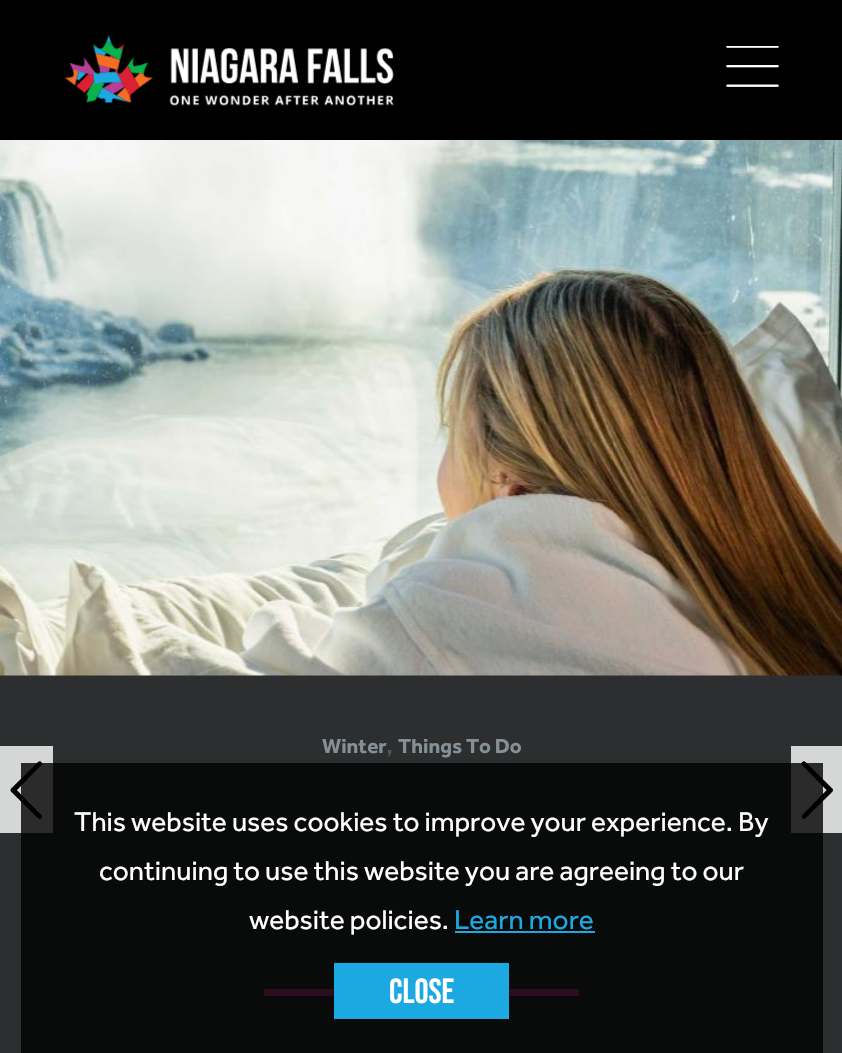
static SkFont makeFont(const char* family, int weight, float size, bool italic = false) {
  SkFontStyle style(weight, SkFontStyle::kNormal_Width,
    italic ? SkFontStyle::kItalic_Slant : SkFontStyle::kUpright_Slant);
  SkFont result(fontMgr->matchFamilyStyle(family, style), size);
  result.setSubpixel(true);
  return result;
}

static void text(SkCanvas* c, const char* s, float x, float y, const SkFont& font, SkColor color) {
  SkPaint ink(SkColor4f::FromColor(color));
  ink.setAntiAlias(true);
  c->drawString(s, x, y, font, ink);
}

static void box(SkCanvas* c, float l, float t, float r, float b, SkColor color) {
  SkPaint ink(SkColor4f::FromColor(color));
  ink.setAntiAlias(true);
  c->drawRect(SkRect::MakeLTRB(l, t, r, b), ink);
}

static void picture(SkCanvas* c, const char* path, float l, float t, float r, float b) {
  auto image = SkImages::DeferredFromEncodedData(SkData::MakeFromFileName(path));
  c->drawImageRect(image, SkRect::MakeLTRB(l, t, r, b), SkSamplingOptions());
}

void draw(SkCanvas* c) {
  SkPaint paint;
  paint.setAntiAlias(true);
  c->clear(0xff2d2e2f);
  box(c, 0, 0, 842, 140, 0xff000000);
  picture(c, "img_01.png", 64, 35, 394, 106);
  picture(c, "img_02.png", 726, 46, 779, 87);
  box(c, 0, 746, 53, 833, 0xccffffff);
  picture(c, "img_03.png", 10, 761, 42, 819);
  picture(c, "img_04.png", 0, 140, 842, 676);
  SkFont face1 = makeFont("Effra", 700, 21);
  text(c, "Winter", 322, 753, face1, 0xff859096);
  SkFont face2 = makeFont("Effra", 400, 28);
  text(c, ",", 386, 753, face2, 0xff52575a);
  text(c, "Things To Do", 398, 753, face1, 0xff859096);
  box(c, 264, 989, 579, 996, 0xffd93e97);
  box(c, 791, 746, 842, 833, 0xccffffff);
  picture(c, "img_05.png", 801, 761, 833, 819);
  box(c, 21, 763, 823, 1053, 0xcc000000);
  text(c, "This website uses cookies to improve your experience. By", 74, 831, face2, 0xffffffff);
  text(c, "continuing to use this website you are agreeing to our", 99, 880, face2, 0xffffffff);
  text(c, "website policies.", 249, 929, face2, 0xffffffff);
  text(c, "Learn more", 454, 929, face2, 0xff1ca9e1);
  box(c, 455, 931, 595, 933, 0xff1ca9e1);
  box(c, 334, 963, 509, 1019, 0xff1ca9e1);
  SkFont face3 = makeFont("Bebas Neue", 400, 35);
  text(c, "Close", 389, 1003, face3, 0xffffffff);
}
